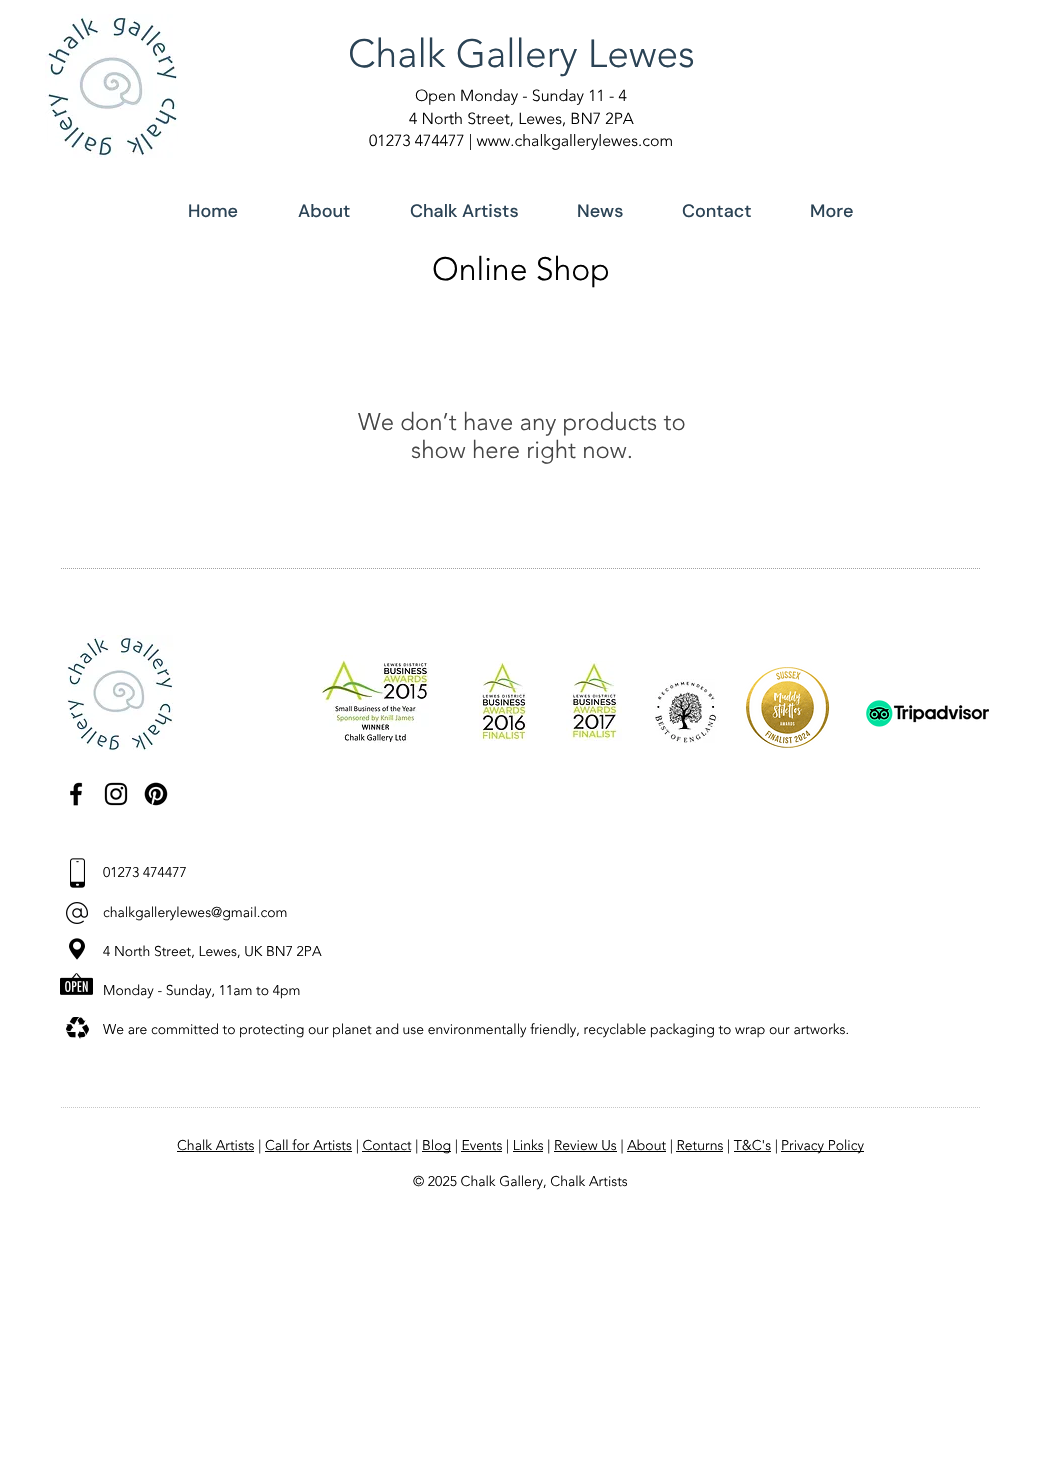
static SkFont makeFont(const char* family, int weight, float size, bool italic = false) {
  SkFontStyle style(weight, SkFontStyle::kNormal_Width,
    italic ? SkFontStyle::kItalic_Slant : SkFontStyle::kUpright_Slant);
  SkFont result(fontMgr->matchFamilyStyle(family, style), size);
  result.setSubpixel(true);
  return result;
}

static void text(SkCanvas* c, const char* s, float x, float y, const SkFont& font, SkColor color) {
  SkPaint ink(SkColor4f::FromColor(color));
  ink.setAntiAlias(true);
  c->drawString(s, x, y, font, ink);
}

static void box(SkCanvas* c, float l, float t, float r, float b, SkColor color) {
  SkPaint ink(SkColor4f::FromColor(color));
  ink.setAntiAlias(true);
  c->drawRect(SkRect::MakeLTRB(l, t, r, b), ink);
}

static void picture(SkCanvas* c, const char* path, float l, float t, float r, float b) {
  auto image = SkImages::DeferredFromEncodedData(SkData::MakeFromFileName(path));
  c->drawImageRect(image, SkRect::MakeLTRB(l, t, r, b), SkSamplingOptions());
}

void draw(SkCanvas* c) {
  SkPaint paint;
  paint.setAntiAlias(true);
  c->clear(0xffffffff);
  picture(c, "img_01.png", 45, 14, 178, 158);
  SkFont face1 = makeFont("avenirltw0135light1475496", 300, 39);
  text(c, "Chalk Gallery Lewes", 348, 67, face1, 0xff2b4355);
  SkFont face2 = makeFont("avenirltw0135light1475496", 300, 16);
  text(c, "Open Monday - Sunday 11 - 4", 415, 101, face2, 0xff000000);
  text(c, "4 North Street, Lewes, BN7 2PA", 409, 124, face2, 0xff000000);
  text(c, "01273 474477 | www.chalkgallerylewes.com", 369, 146, face2, 0xff000000);
  SkFont face3 = makeFont("DM Sans", 500, 18);
  text(c, "Home", 188, 217, face3, 0xff2b4355);
  text(c, "About", 298, 217, face3, 0xff2b4355);
  text(c, "Chalk Artists", 410, 217, face3, 0xff2b4355);
  text(c, "News", 577, 217, face3, 0xff2b4355);
  text(c, "Contact", 682, 217, face3, 0xff2b4355);
  text(c, "More", 810, 217, face3, 0xff2b4355);
  SkFont face4 = makeFont("avenirltw0135light1475496", 300, 32);
  text(c, "Online Shop", 432, 280, face4, 0xff000000);
  SkFont face5 = makeFont("avenirltw0135light1475496", 300, 24);
  text(c, "We don’t have any products to", 358, 430, face5, 0xff454545);
  text(c, "show here right now.", 411, 458, face5, 0xff454545);
  paint.setStyle(SkPaint::kStroke_Style);
  paint.setStrokeWidth(1);
  paint.setColor(0xffa2a2a2);
  paint.setPathEffect(SkDashPathEffect::Make({{1, 1}}, 0));
  c->drawPath(SkPathBuilder().moveTo(61, 568.5f).lineTo(980, 568.5f).detach(), paint);
  paint.setPathEffect(nullptr);
  picture(c, "img_02.png", 66, 635, 174, 752);
  picture(c, "img_03.png", 320, 655, 429, 743);
  picture(c, "img_04.png", 479, 661, 527, 741);
  picture(c, "img_05.png", 566, 661, 622, 741);
  picture(c, "img_06.png", 655, 679, 719, 743);
  picture(c, "img_07.png", 745, 667, 830, 748);
  picture(c, "img_08.png", 866, 700, 989, 727);
  picture(c, "img_09.png", 70, 782, 83, 806);
  picture(c, "img_10.png", 104, 782, 128, 806);
  picture(c, "img_11.png", 144, 782, 168, 806);
  picture(c, "img_12.png", 70, 858, 85, 888);
  SkFont face6 = makeFont("avenirltw0135light1475496", 300, 14);
  text(c, "01273 474477", 103, 877, face6, 0xff000000);
  text(c, "chalkgallerylewes@gmail.com", 103, 917, face6, 0xff000000);
  text(c, "4 North Street, Lewes, UK BN7 2PA", 103, 956, face6, 0xff000000);
  text(c, "Monday - Sunday, 11am to 4pm", 103, 995, face6, 0xff000000);
  text(c, "We are committed to protecting our planet and use environmentally friendly, recyclable packaging to wrap our artworks.", 103, 1034, face6, 0xff000000);
  picture(c, "img_13.png", 66, 902, 88, 924);
  picture(c, "img_14.png", 69, 938, 85, 960);
  picture(c, "img_15.png", 60, 973, 93, 995);
  picture(c, "img_16.png", 66, 1017, 89, 1039);
  paint.setColor(0xffc7c7c7);
  paint.setPathEffect(SkDashPathEffect::Make({{1, 1}}, 0));
  c->drawPath(SkPathBuilder().moveTo(61, 1107.5f).lineTo(980, 1107.5f).detach(), paint);
  paint.setPathEffect(nullptr);
  box(c, 177, 1151, 254, 1152, 0xff000000);
  text(c, "Chalk Artists | Call for Artists | Contact |", 177, 1150, face6, 0xff000000);
  box(c, 265, 1151, 352, 1152, 0xff000000);
  box(c, 362, 1151, 411, 1152, 0xff000000);
  box(c, 422, 1151, 451, 1152, 0xff000000);
  text(c, "Blog | Events | Links | Review Us | About | Returns | T&C's |", 422, 1150, face6, 0xff000000);
  box(c, 461, 1151, 502, 1152, 0xff000000);
  box(c, 513, 1151, 543, 1152, 0xff000000);
  box(c, 554, 1151, 617, 1152, 0xff000000);
  box(c, 627, 1151, 666, 1152, 0xff000000);
  box(c, 676, 1151, 723, 1152, 0xff000000);
  box(c, 734, 1151, 771, 1152, 0xff000000);
  box(c, 781, 1151, 864, 1152, 0xff000000);
  text(c, "Privacy Policy", 781, 1150, face6, 0xff000000);
  text(c, "© 2025 Chalk Gallery, Chalk Artists", 413, 1186, face6, 0xff000000);
}
